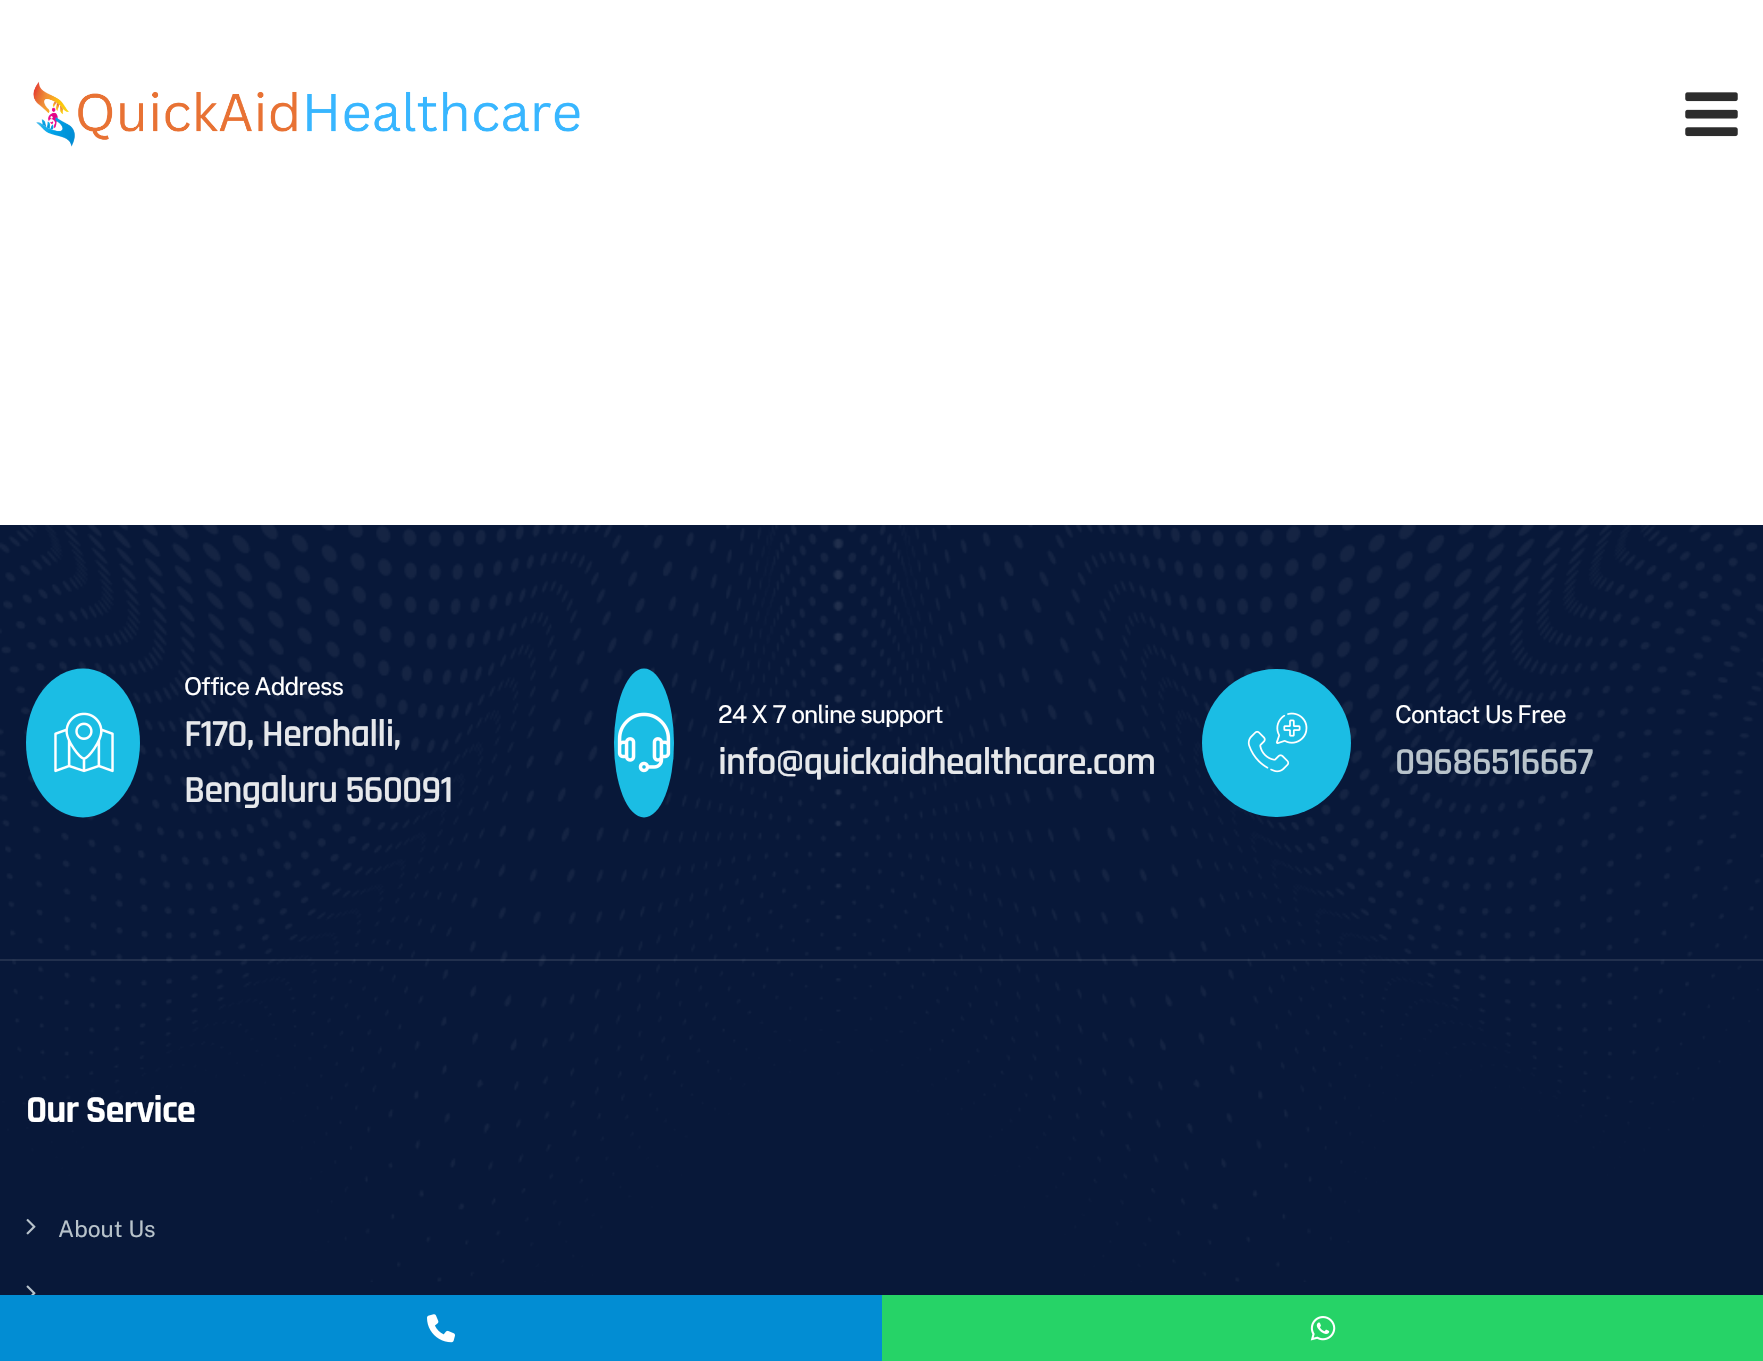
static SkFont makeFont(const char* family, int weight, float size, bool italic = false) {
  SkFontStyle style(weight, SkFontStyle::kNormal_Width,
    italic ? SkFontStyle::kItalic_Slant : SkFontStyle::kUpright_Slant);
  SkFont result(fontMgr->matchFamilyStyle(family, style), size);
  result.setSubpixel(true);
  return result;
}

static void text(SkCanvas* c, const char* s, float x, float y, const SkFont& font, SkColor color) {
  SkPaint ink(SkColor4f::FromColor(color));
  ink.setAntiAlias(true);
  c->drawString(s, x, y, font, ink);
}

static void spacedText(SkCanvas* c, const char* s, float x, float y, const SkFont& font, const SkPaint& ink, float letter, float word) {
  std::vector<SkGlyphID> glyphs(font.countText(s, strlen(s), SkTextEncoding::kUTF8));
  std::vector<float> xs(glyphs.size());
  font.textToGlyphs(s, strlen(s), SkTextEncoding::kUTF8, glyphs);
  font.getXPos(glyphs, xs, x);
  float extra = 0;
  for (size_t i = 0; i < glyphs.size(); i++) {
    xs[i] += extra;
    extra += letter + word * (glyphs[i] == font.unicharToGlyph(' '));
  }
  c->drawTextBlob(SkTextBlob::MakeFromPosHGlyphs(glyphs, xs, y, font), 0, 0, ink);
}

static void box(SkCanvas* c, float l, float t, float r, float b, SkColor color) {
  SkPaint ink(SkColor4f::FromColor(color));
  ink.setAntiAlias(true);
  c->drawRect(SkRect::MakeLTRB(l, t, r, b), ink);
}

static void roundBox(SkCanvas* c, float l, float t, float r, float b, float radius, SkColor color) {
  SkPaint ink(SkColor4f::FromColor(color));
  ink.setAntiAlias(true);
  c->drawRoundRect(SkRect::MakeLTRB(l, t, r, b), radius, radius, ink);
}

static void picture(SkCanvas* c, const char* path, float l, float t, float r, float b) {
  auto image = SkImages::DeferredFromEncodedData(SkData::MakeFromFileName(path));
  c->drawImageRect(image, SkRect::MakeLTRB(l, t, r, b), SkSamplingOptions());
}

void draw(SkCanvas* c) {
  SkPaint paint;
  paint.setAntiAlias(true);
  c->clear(0xffffffff);
  picture(c, "img_01.png", 33, 81, 580, 147);
  picture(c, "img_02.png", 1685, 92, 1738, 137);
  box(c, 0, 525, 1763, 1295, 0xff081839);
  picture(c, "img_03.png", 0, 525, 1763, 1282);
  box(c, 0, 959, 1763, 961, 0x1affffff);
  paint.setColor(0xff1bbde4);
  c->drawOval(SkRect::MakeLTRB(26, 668.5f, 140, 817.5f), paint);
  picture(c, "img_04.png", 54, 712, 114, 773);
  SkFont face1 = makeFont("Public Sans", 400, 24.5f);
  paint.setColor(0xffffffff);
  spacedText(c, "Office Address", 184, 695, face1, paint, -0.9f, 0);
  SkFont face2 = makeFont("Rajdhani", 600, 38.5f);
  paint.setColor(0xffe6e8eb);
  spacedText(c, "F170, Herohalli,", 184, 746, face2, paint, -0.9f, 0);
  spacedText(c, "Bengaluru 560091", 184, 802, face2, paint, -0.9f, 0);
  paint.setColor(0xff1bbde4);
  c->drawOval(SkRect::MakeLTRB(614, 668.5f, 674, 817.5f), paint);
  picture(c, "img_05.png", 617, 712, 671, 773);
  paint.setColor(0xffffffff);
  spacedText(c, "24 X 7 online support", 718, 723, face1, paint, -0.9f, 0);
  paint.setColor(0xffe6e8eb);
  spacedText(c, "info@quickaidhealthcare.com", 718, 774, face2, paint, -0.9f, 0);
  roundBox(c, 1202, 669, 1351, 817, 74, 0xff1bbde4);
  picture(c, "img_06.png", 1247, 712, 1308, 773);
  paint.setColor(0xffffffff);
  spacedText(c, "Contact Us Free", 1395, 723, face1, paint, -0.9f, 0);
  paint.setColor(0xffb8c3cb);
  spacedText(c, "09686516667", 1395, 774, face2, paint, -0.9f, 0);
  SkFont face3 = makeFont("Rajdhani", 700, 38.5f);
  paint.setColor(0xffffffff);
  spacedText(c, "Our Service", 26, 1122, face3, paint, -0.9f, 0);
  picture(c, "img_07.png", 26, 1218, 36, 1235);
  SkFont face4 = makeFont("Public Sans", 400, 22.75f);
  text(c, "About Us", 58, 1237, face4, 0xffb8c3cb);
  picture(c, "img_08.png", 26, 1285, 36, 1295);
  box(c, 0, 1295, 882, 1361, 0xff028dd3);
  picture(c, "img_09.png", 427, 1314, 455, 1343);
  box(c, 882, 1295, 1763, 1361, 0xff26d367);
  picture(c, "img_10.png", 1310, 1316, 1336, 1341);
}
